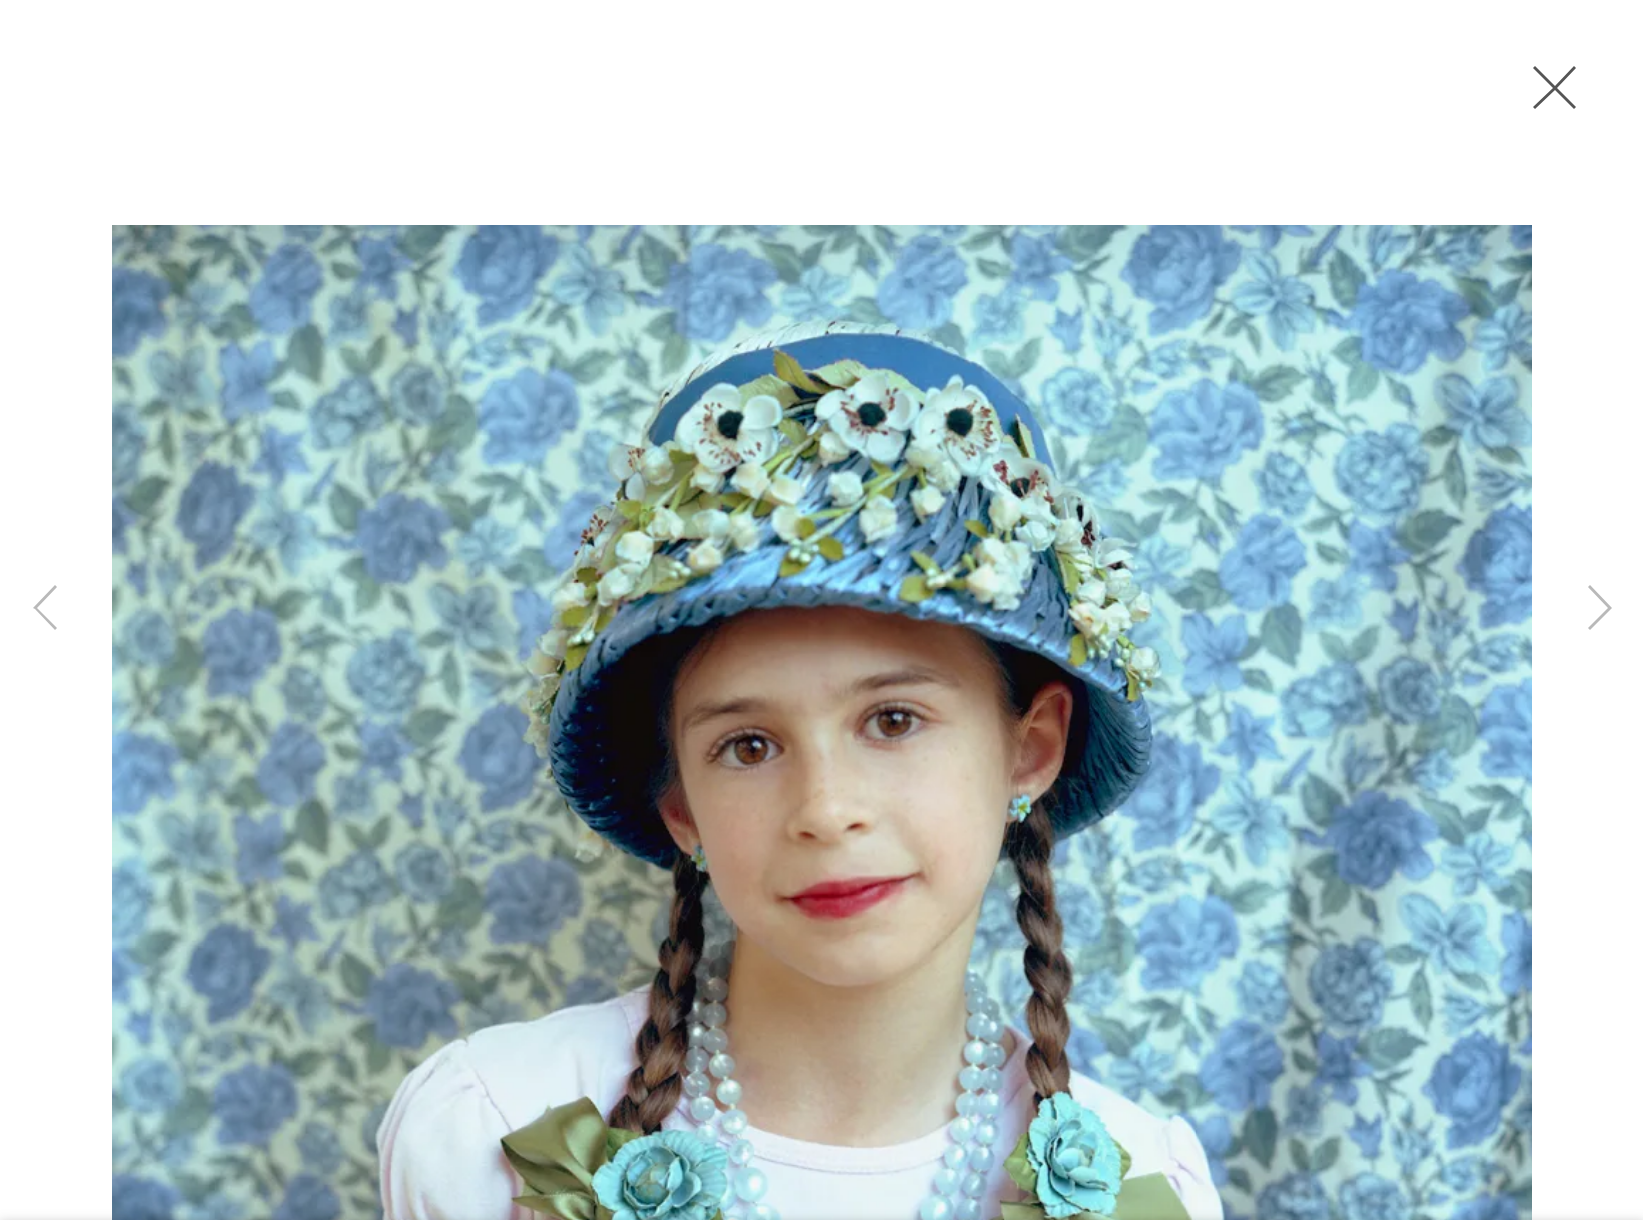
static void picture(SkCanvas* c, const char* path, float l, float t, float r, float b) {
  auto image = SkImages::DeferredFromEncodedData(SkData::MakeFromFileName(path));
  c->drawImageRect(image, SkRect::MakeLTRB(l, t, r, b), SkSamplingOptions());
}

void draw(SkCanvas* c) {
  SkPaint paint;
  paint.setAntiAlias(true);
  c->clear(0xffffffff);
  paint.setColor(0xff555555);
  c->drawPath(SkPathBuilder().moveTo(1576, 68).lineTo(1574, 66).lineTo(1555, 86).lineTo(1535, 66).lineTo(1533, 68).lineTo(1553, 88).lineTo(1533, 107).lineTo(1535, 109).lineTo(1555, 90).lineTo(1574, 109).lineTo(1576, 107).lineTo(1557, 88).close().detach(), paint);
  picture(c, "img_01.png", 112, 225, 1532, 1220);
  paint.setColor(0xffb9b9b9);
  c->drawPath(SkPathBuilder().moveTo(35, 609).lineTo(55, 630).lineTo(57, 628).lineTo(37, 608).lineTo(57, 587).lineTo(55, 585).lineTo(33, 608).close().detach(), paint);
  c->drawPath(SkPathBuilder().moveTo(1612, 608).lineTo(1590, 585).lineTo(1588, 587).lineTo(1608, 608).lineTo(1588, 628).lineTo(1590, 630).close().detach(), paint);
  paint.setColor(0x3b000000);
  paint.setMaskFilter(SkMaskFilter::MakeBlur(kNormal_SkBlurStyle, 5.5f));
  c->drawRect(SkRect::MakeLTRB(0, 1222, 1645, 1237), paint);
  paint.setMaskFilter(nullptr);
}
